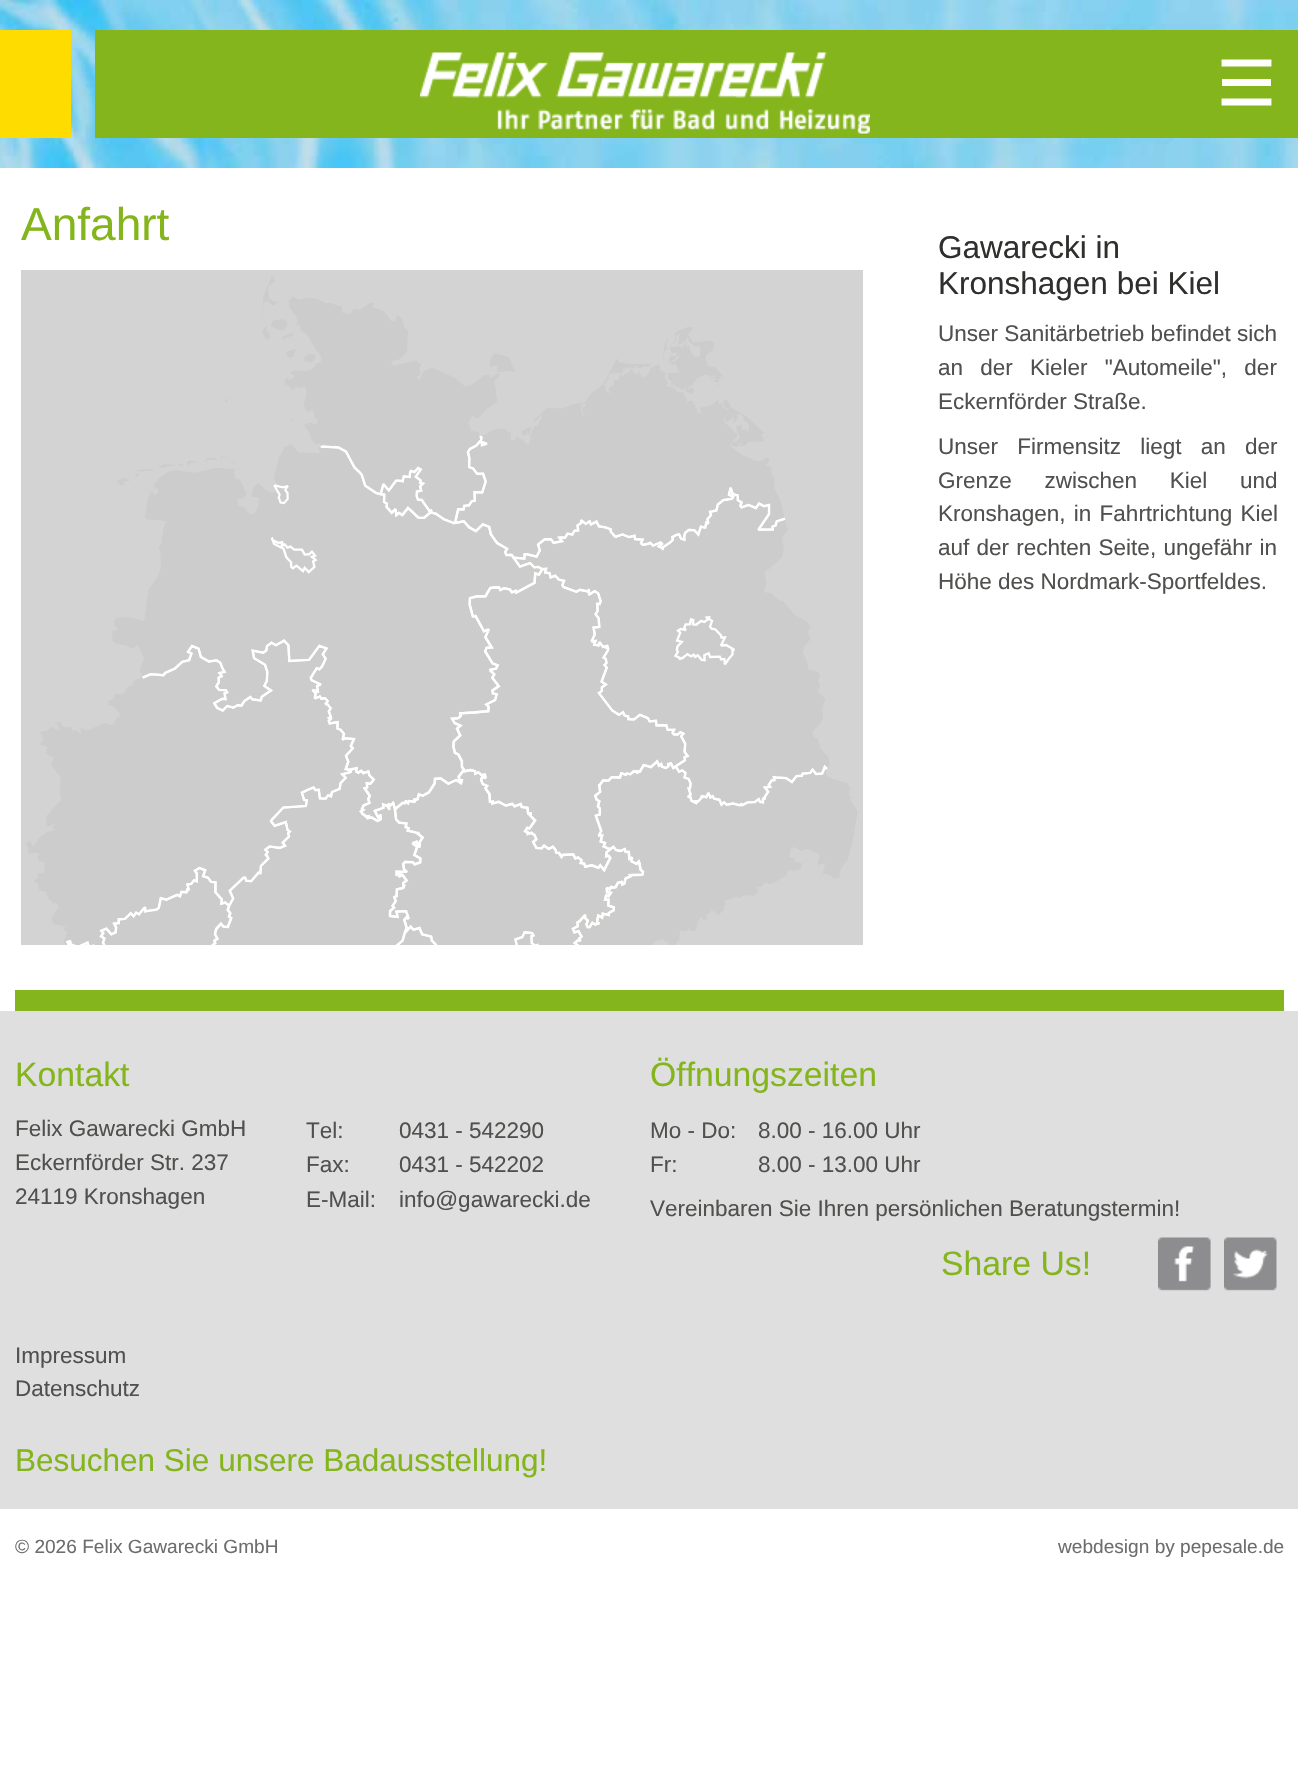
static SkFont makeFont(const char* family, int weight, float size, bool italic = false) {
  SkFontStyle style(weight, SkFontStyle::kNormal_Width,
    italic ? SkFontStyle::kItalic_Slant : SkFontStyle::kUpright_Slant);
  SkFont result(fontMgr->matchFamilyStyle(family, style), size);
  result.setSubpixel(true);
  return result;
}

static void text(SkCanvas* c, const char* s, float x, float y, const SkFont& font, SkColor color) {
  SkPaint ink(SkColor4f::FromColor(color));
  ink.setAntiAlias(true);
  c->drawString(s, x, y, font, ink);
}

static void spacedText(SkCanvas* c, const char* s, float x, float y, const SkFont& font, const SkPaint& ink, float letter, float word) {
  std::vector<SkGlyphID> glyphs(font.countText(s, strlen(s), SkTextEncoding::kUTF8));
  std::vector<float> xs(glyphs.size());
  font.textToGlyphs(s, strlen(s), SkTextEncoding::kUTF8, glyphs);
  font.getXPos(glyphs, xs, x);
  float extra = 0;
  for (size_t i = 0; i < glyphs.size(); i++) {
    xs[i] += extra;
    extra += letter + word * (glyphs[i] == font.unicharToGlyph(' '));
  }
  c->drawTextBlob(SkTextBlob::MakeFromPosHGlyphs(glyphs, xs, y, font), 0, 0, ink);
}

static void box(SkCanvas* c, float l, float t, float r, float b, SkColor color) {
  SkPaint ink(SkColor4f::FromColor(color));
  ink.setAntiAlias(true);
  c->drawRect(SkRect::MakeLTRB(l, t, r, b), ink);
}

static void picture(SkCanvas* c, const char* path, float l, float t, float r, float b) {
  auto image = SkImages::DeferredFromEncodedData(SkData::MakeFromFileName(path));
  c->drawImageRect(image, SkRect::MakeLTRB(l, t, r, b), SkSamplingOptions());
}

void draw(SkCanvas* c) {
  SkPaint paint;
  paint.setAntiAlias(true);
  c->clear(0xffffffff);
  picture(c, "img_01.png", 0, 0, 1298, 168);
  box(c, 0, 30, 71, 138, 0xffffdc00);
  box(c, 95, 30, 1298, 138, 0xff84b51c);
  picture(c, "img_02.png", 420, 52, 870, 134);
  paint.setStyle(SkPaint::kStroke_Style);
  paint.setStrokeWidth(6.9f);
  paint.setStrokeCap(SkPaint::kSquare_Cap);
  paint.setColor(0xffffffff);
  c->drawPath(SkPathBuilder().moveTo(1225, 63).lineTo(1268, 63).detach(), paint);
  box(c, 1222, 79, 1271, 86, 0xfffdfefc);
  c->drawPath(SkPathBuilder().moveTo(1225, 102).lineTo(1268, 102).detach(), paint);
  box(c, 15, 990, 1284, 1011, 0xff84b51c);
  SkFont face1 = makeFont("Liberation Sans", 400, 46);
  text(c, "Anfahrt", 21, 240, face1, 0xff84b51c);
  box(c, 21, 270, 863, 945, 0xffd3d3d3);
  picture(c, "img_03.png", 26, 276, 858, 945);
  SkFont face2 = makeFont("Liberation Sans", 400, 31.5f);
  text(c, "Gawarecki in", 938, 258, face2, 0xff2f2f2e);
  text(c, "Kronshagen bei Kiel", 938, 294, face2, 0xff2f2f2e);
  SkFont face3 = makeFont("Liberation Sans", 400, 22.5f);
  text(c, "Unser Sanitärbetrieb befindet sich", 938, 341, face3, 0xff50504e);
  paint.setStyle(SkPaint::kFill_Style);
  paint.setColor(0xff50504e);
  spacedText(c, "an der Kieler \"Automeile\", der", 938, 375, face3, paint, 0, 11);
  text(c, "Eckernförder Straße.", 938, 409, face3, 0xff50504e);
  spacedText(c, "Unser Firmensitz liegt an der", 938, 454, face3, paint, 0, 13);
  spacedText(c, "Grenze zwischen Kiel und", 938, 488, face3, paint, 0, 26.5f);
  spacedText(c, "Kronshagen, in Fahrtrichtung Kiel", 938, 521, face3, paint, 0, 2);
  spacedText(c, "auf der rechten Seite, ungefähr in", 938, 555, face3, paint, 0, 1);
  text(c, "Höhe des Nordmark-Sportfeldes.", 938, 589, face3, 0xff50504e);
  box(c, 0, 1011, 1298, 1509, 0xffdfdfdf);
  SkFont face4 = makeFont("Liberation Sans", 400, 33.75f);
  text(c, "Kontakt", 15, 1086, face4, 0xff84b51c);
  text(c, "Felix Gawarecki GmbH", 15, 1136, face3, 0xff50504e);
  text(c, "Eckernförder Str. 237", 15, 1170, face3, 0xff50504e);
  text(c, "24119 Kronshagen", 15, 1204, face3, 0xff50504e);
  text(c, "Tel:", 306, 1138, face3, 0xff50504e);
  text(c, "0431 - 542290", 399, 1138, face3, 0xff50504e);
  text(c, "Fax:", 306, 1172, face3, 0xff50504e);
  text(c, "0431 - 542202", 399, 1172, face3, 0xff50504e);
  text(c, "E-Mail:", 306, 1207, face3, 0xff50504e);
  text(c, "info@gawarecki.de", 399, 1207, face3, 0xff50504e);
  text(c, "Öffnungszeiten", 650, 1086, face4, 0xff84b51c);
  text(c, "Mo - Do:", 650, 1138, face3, 0xff50504e);
  text(c, "8.00 - 16.00 Uhr", 758, 1138, face3, 0xff50504e);
  text(c, "Fr:", 650, 1172, face3, 0xff50504e);
  text(c, "8.00 - 13.00 Uhr", 758, 1172, face3, 0xff50504e);
  text(c, "Vereinbaren Sie Ihren persönlichen Beratungstermin!", 650, 1216, face3, 0xff50504e);
  text(c, "Share Us!", 941, 1275, face4, 0xff84b51c);
  picture(c, "img_04.png", 1158, 1237, 1211, 1291);
  picture(c, "img_05.png", 1224, 1237, 1277, 1291);
  text(c, "Impressum", 15, 1363, face3, 0xff50504e);
  text(c, "Datenschutz", 15, 1396, face3, 0xff50504e);
  text(c, "Besuchen Sie unsere Badausstellung!", 15, 1471, face2, 0xff84b51c);
  SkFont face5 = makeFont("Liberation Sans", 400, 19.1f);
  text(c, "© 2026 Felix Gawarecki GmbH", 15, 1553, face5, 0xff6d6d6c);
  text(c, "webdesign by pepesale.de", 1058, 1553, face5, 0xff6d6d6c);
}
